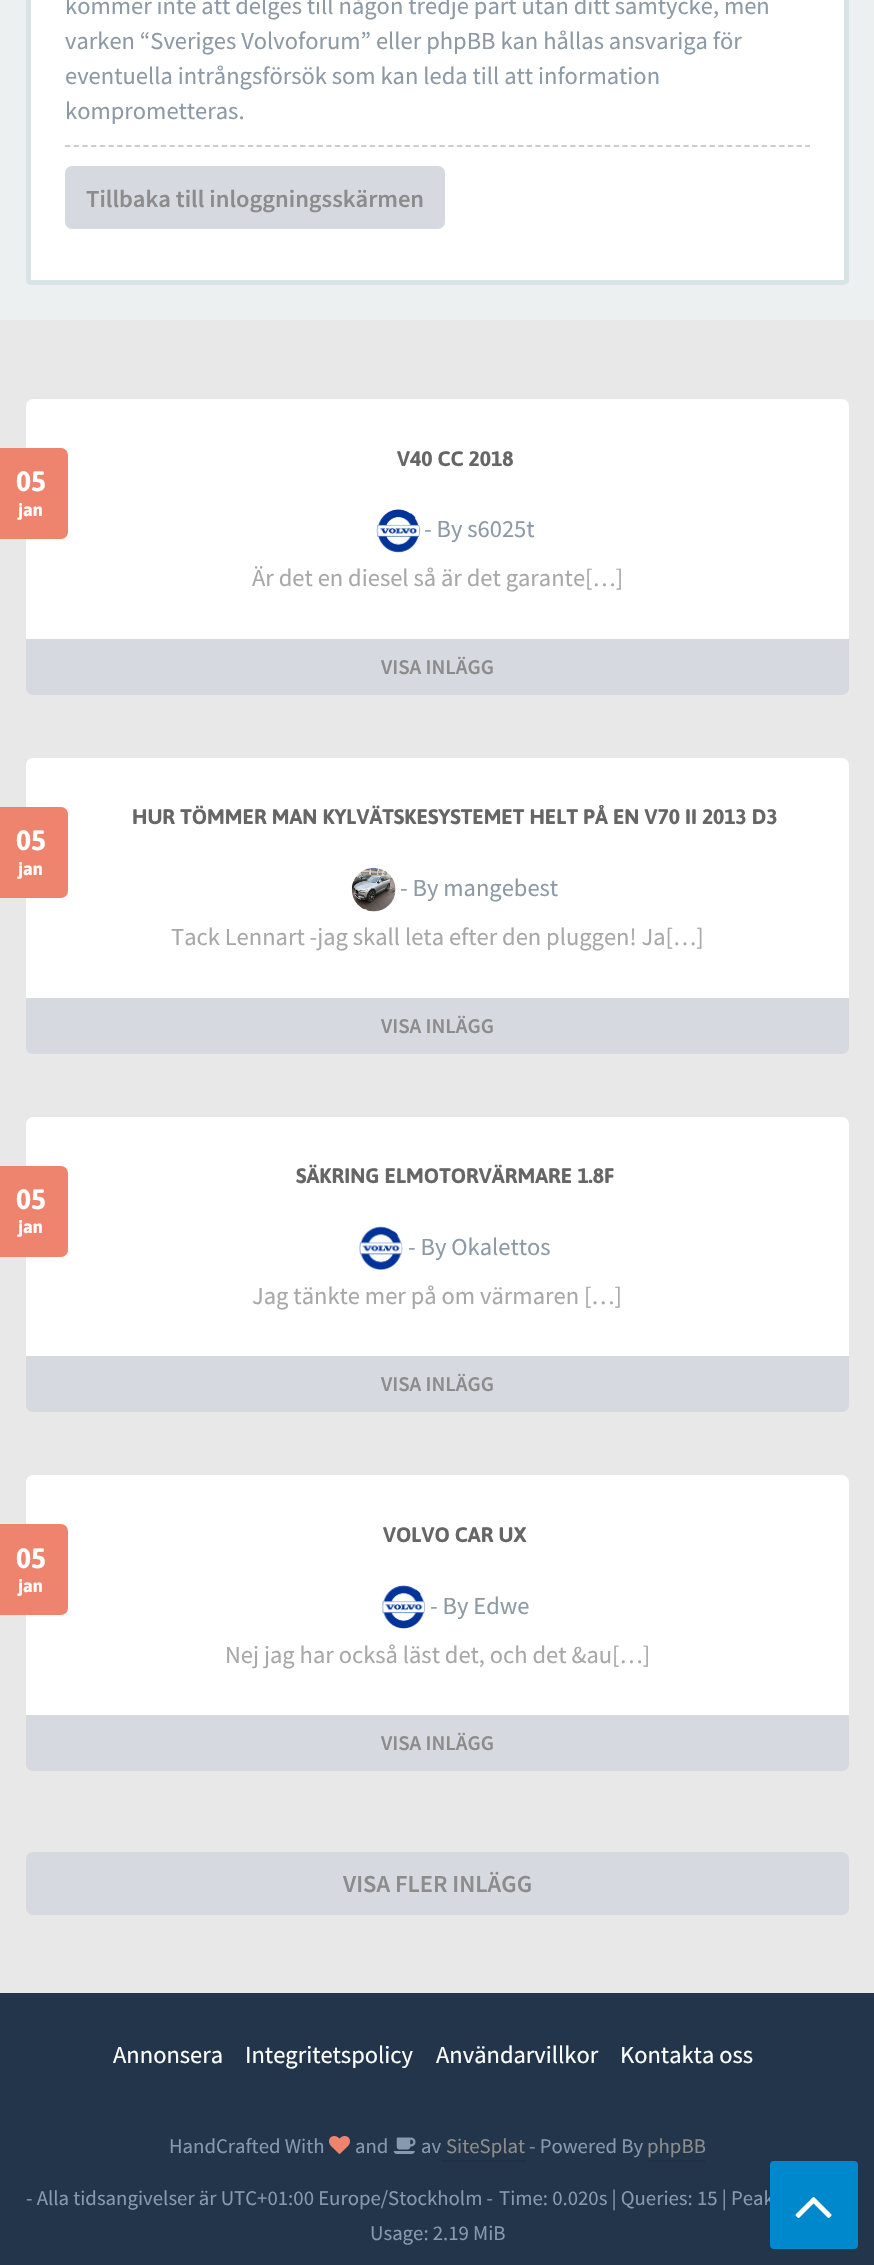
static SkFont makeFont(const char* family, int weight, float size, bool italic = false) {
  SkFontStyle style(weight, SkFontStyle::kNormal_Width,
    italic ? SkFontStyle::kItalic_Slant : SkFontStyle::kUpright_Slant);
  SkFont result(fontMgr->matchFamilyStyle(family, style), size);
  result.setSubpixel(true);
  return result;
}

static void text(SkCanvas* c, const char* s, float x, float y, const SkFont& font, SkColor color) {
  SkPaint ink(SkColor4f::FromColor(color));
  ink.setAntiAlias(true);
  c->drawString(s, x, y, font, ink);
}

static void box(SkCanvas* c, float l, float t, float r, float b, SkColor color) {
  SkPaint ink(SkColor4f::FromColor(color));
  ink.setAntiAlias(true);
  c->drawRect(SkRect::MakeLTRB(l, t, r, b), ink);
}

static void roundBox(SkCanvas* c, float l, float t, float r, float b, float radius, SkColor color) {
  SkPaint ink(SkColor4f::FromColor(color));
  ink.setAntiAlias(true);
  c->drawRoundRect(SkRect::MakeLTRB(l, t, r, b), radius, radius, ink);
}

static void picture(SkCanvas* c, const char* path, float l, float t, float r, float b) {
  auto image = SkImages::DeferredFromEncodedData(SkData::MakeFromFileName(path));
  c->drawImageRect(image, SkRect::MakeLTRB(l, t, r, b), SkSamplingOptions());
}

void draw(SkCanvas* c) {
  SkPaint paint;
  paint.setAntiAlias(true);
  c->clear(0xffecf0f1);
  paint.setColor(0xffffffff);
  c->drawRoundRect(SkRect::MakeLTRB(28.5f, -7.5f, 846.5f, 282.5f), 2.5f, 2.5f, paint);
  paint.setStyle(SkPaint::kStroke_Style);
  paint.setStrokeWidth(5);
  paint.setColor(0xffd8e3e6);
  c->drawRoundRect(SkRect::MakeLTRB(28.5f, -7.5f, 846.5f, 282.5f), 2.5f, 2.5f, paint);
  SkFont face1 = makeFont("Source Sans Pro", 400, 24.5f);
  text(c, "kommer inte att delges till någon tredje part utan ditt samtycke, men", 65, 14, face1, 0xff8d9aa5);
  text(c, "varken “Sveriges Volvoforum” eller phpBB kan hållas ansvariga för", 65, 49, face1, 0xff8d9aa5);
  text(c, "eventuella intrångsförsök som kan leda till att information", 65, 84, face1, 0xff8d9aa5);
  text(c, "komprometteras.", 65, 119, face1, 0xff8d9aa5);
  paint.setStrokeWidth(1.8f);
  paint.setColor(0xffcccccc);
  paint.setPathEffect(SkDashPathEffect::Make({{5.25f, 3.46f}}, 0));
  c->drawPath(SkPathBuilder().moveTo(65, 146).lineTo(810, 146).detach(), paint);
  paint.setPathEffect(nullptr);
  roundBox(c, 65, 166, 445, 229, 7, 0xffd6d9e0);
  SkFont face2 = makeFont("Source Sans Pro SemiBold", 600, 24.5f);
  text(c, "Tillbaka till inloggningsskärmen", 86, 207, face2, 0xff8c8c8c);
  box(c, 0, 320, 874, 1993, 0xffe8e8e8);
  roundBox(c, 26, 399, 849, 679, 7, 0xffffffff);
  roundBox(c, -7, 448, 68, 539, 7, 0xffee836e);
  SkFont face3 = makeFont("Asap", 700, 28);
  text(c, "05", 16, 491, face3, 0xffffffff);
  SkFont face4 = makeFont("Asap", 700, 18);
  text(c, "jan", 18, 516, face4, 0xffffffff);
  SkFont face5 = makeFont("Asap", 700, 21);
  text(c, "V40 CC 2018", 397, 466, face5, 0xff666666);
  picture(c, "img_01.png", 376, 509, 420, 553);
  text(c, "- By s6025t", 424, 537, face1, 0xff8d9aa5);
  text(c, "Är det en diesel så är det garante[…]", 252, 586, face1, 0xffa8a8a8);
  paint.setStyle(SkPaint::kFill_Style);
  paint.setColor(0xffd6d9e0);
  c->drawPath(SkPathBuilder().moveTo(26, 639).lineTo(849, 639).lineTo(849, 688).cubicTo(849, 692, 846, 695, 842, 695).lineTo(33, 695).cubicTo(29, 695, 26, 692, 26, 688).close().detach(), paint);
  SkFont face6 = makeFont("Source Sans Pro SemiBold", 600, 21);
  text(c, "VISA INLÄGG", 381, 674, face6, 0xff8c8c8c);
  roundBox(c, 26, 758, 849, 1038, 7, 0xffffffff);
  roundBox(c, -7, 807, 68, 898, 7, 0xffee836e);
  text(c, "05", 16, 850, face3, 0xffffffff);
  text(c, "jan", 18, 875, face4, 0xffffffff);
  c->save();
  c->clipRect(SkRect::MakeLTRB(81, 805, 830, 849));
  text(c, "HUR TÖMMER MAN KYLVÄTSKESYSTEMET HELT PÅ EN V70 II 2013 D3", 132, 824, face5, 0xff666666);
  c->restore();
  picture(c, "img_02.png", 351, 867, 396, 912);
  text(c, "- By mangebest", 400, 896, face1, 0xff8d9aa5);
  text(c, "Tack Lennart -jag skall leta efter den pluggen! Ja[…]", 171, 945, face1, 0xffa8a8a8);
  c->drawPath(SkPathBuilder().moveTo(26, 998).lineTo(849, 998).lineTo(849, 1047).cubicTo(849, 1051, 846, 1054, 842, 1054).lineTo(33, 1054).cubicTo(29, 1054, 26, 1051, 26, 1047).close().detach(), paint);
  text(c, "VISA INLÄGG", 381, 1033, face6, 0xff8c8c8c);
  roundBox(c, 26, 1117, 849, 1397, 7, 0xffffffff);
  roundBox(c, -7, 1166, 68, 1257, 7, 0xffee836e);
  text(c, "05", 16, 1209, face3, 0xffffffff);
  text(c, "jan", 18, 1233, face4, 0xffffffff);
  text(c, "SÄKRING ELMOTORVÄRMARE 1.8F", 296, 1183, face5, 0xff666666);
  picture(c, "img_03.png", 359, 1226, 403, 1270);
  text(c, "- By Okalettos", 408, 1255, face1, 0xff8d9aa5);
  text(c, "Jag tänkte mer på om värmaren […]", 252, 1304, face1, 0xffa8a8a8);
  c->drawPath(SkPathBuilder().moveTo(26, 1356).lineTo(849, 1356).lineTo(849, 1405).cubicTo(849, 1409, 846, 1412, 842, 1412).lineTo(33, 1412).cubicTo(29, 1412, 26, 1409, 26, 1405).close().detach(), paint);
  text(c, "VISA INLÄGG", 381, 1391, face6, 0xff8c8c8c);
  roundBox(c, 26, 1475, 849, 1755, 7, 0xffffffff);
  roundBox(c, -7, 1524, 68, 1615, 7, 0xffee836e);
  text(c, "05", 16, 1568, face3, 0xffffffff);
  text(c, "jan", 18, 1592, face4, 0xffffffff);
  text(c, "VOLVO CAR UX", 383, 1542, face5, 0xff666666);
  picture(c, "img_04.png", 381, 1585, 426, 1629);
  text(c, "- By Edwe", 430, 1614, face1, 0xff8d9aa5);
  text(c, "Nej jag har också läst det, och det &au[…]", 225, 1663, face1, 0xffa8a8a8);
  c->drawPath(SkPathBuilder().moveTo(26, 1715).lineTo(849, 1715).lineTo(849, 1764).cubicTo(849, 1768, 846, 1771, 842, 1771).lineTo(33, 1771).cubicTo(29, 1771, 26, 1768, 26, 1764).close().detach(), paint);
  text(c, "VISA INLÄGG", 381, 1750, face6, 0xff8c8c8c);
  roundBox(c, 26, 1852, 849, 1915, 7, 0xffd6d9e0);
  text(c, "VISA FLER INLÄGG", 343, 1892, face2, 0xff8c8c8c);
  box(c, 0, 1993, 874, 2265, 0xff22354a);
  text(c, "Annonsera", 113, 2063, face1, 0xffffffff);
  text(c, "Integritetspolicy", 245, 2063, face1, 0xffffffff);
  text(c, "Användarvillkor", 436, 2063, face1, 0xffffffff);
  text(c, "Kontakta oss", 620, 2063, face1, 0xffffffff);
  SkFont face7 = makeFont("Source Sans Pro", 400, 20.8f);
  text(c, "HandCrafted With", 169, 2153, face7, 0xff869aaf);
  picture(c, "img_05.png", 329, 2136, 350, 2154);
  text(c, "and", 355, 2153, face7, 0xff869aaf);
  picture(c, "img_06.png", 393, 2137, 416, 2154);
  text(c, "av", 421, 2153, face7, 0xff869aaf);
  box(c, 441, 2160, 525, 2162, 0xff1f3043);
  text(c, "SiteSplat", 446, 2153, face7, 0xff8c8c8c);
  text(c, "- Powered By", 529, 2153, face7, 0xff869aaf);
  text(c, "phpBB", 647, 2153, face7, 0xff8c8c8c);
  box(c, 648, 2160, 705, 2162, 0xff1f3043);
  text(c, "- Alla tidsangivelser är UTC+01:00 Europe/Stockholm -", 26, 2205, face7, 0xff869aaf);
  text(c, "Time: 0.020s | Queries: 15 | Peak", 499, 2205, face7, 0xff869aaf);
  text(c, "Usage: 2.19 MiB", 370, 2240, face7, 0xff869aaf);
  roundBox(c, 770, 2161, 858, 2249, 4, 0xff0088cc);
  picture(c, "img_07.png", 795, 2197, 832, 2218);
}
